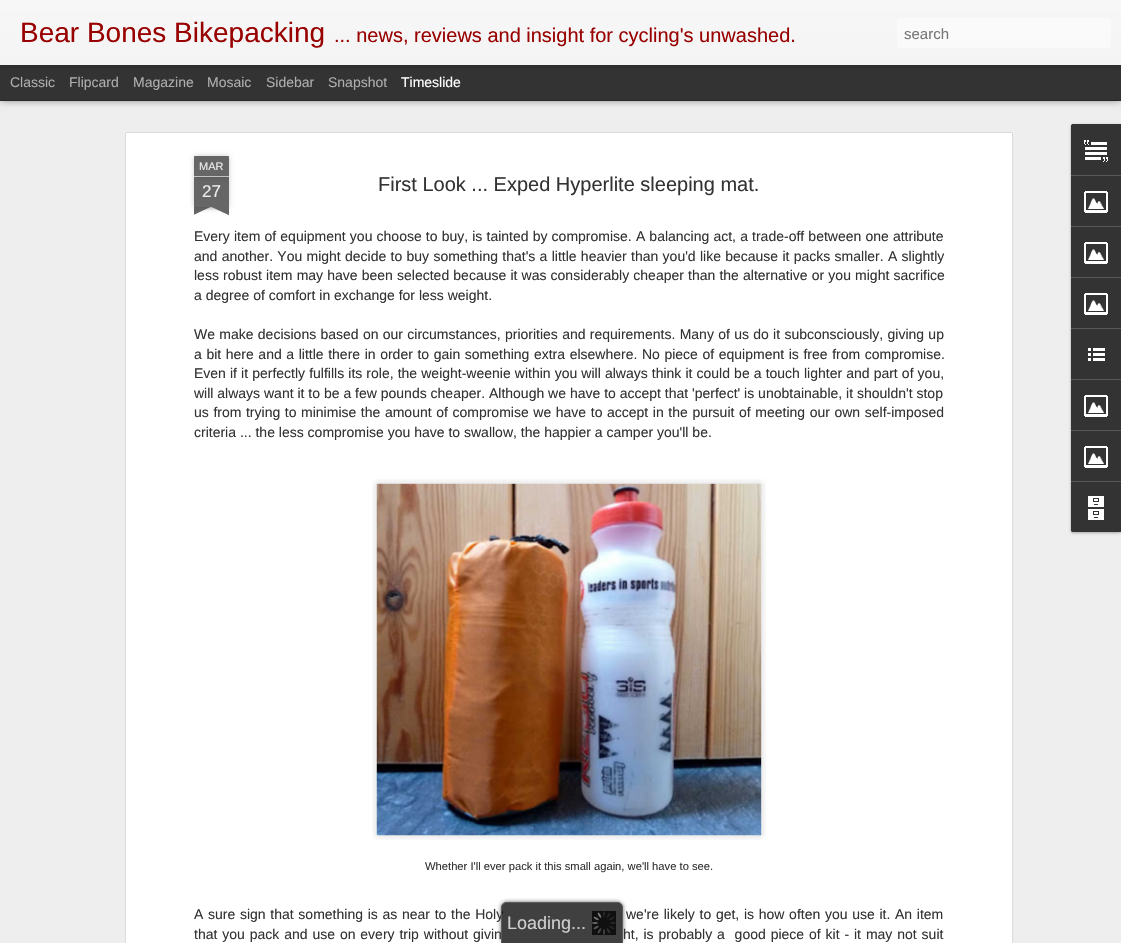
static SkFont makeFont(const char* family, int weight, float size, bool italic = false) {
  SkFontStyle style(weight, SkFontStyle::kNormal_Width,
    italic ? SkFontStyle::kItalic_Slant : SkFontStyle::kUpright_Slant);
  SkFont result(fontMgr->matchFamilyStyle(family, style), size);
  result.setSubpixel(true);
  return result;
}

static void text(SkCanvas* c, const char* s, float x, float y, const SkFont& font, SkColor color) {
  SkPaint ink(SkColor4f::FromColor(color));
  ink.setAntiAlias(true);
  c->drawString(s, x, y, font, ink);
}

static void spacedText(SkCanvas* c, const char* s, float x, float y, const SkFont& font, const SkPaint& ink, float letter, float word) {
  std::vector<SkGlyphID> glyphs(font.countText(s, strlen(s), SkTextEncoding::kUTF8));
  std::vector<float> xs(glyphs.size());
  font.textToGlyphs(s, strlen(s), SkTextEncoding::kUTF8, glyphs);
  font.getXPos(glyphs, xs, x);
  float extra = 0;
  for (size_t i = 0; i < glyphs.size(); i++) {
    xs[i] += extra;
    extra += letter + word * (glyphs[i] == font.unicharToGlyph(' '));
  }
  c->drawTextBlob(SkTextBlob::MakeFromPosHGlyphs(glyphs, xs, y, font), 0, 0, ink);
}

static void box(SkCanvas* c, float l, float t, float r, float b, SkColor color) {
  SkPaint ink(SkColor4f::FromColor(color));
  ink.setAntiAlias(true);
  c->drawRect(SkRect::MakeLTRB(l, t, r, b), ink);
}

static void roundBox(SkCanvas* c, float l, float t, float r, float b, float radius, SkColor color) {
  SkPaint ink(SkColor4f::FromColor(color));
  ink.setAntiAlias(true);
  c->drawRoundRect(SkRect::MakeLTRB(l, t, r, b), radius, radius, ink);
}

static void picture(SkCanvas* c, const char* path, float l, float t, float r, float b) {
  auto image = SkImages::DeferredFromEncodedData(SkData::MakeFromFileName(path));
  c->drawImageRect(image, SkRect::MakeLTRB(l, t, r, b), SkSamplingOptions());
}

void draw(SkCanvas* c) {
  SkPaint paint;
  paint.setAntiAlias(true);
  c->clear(0xff333333);
  box(c, 0, 101, 1121, 943, 0xffeeeeee);
  paint.setColor(0x80000000);
  paint.setMaskFilter(SkMaskFilter::MakeBlur(kNormal_SkBlurStyle, 4));
  c->drawRect(SkRect::MakeLTRB(0, 65, 1121, 100), paint);
  paint.setMaskFilter(nullptr);
  box(c, 0, 65, 1121, 100, 0xff333333);
  paint.setColor(0x4d000000);
  paint.setMaskFilter(SkMaskFilter::MakeBlur(kNormal_SkBlurStyle, 2.5f));
  c->drawRect(SkRect::MakeLTRB(0, 0, 1121, 65), paint);
  paint.setMaskFilter(nullptr);
  {
    const SkColor colors[] = {0xfff7f7f7, 0xfff4f4f4};
    const float stops[] = {0, 1};
    const SkPoint ends[] = {{0, 0}, {0, 65}};
    paint.setShader(SkGradientShader::MakeLinear(ends, colors, stops, 2, SkTileMode::kClamp));
    paint.setAlpha(255);
  }
  c->drawRect(SkRect::MakeLTRB(0, 0, 1121, 65), paint);
  SkFont face1 = makeFont("Liberation Sans", 400, 28);
  text(c, "Bear Bones Bikepacking", 20, 42, face1, 0xff990000);
  SkFont face2 = makeFont("Liberation Sans", 400, 20);
  text(c, "... news, reviews and insight for cycling's unwashed.", 334, 42, face2, 0xff990000);
  roundBox(c, 897, 18, 1111, 48, 3, 0xfffafafa);
  SkFont face3 = makeFont("Liberation Sans", 400, 15);
  text(c, "search", 904, 39, face3, 0xff757575);
  SkFont face4 = makeFont("Liberation Sans", 400, 14);
  text(c, "Classic", 10, 87, face4, 0xffadadad);
  text(c, "Flipcard", 69, 87, face4, 0xffadadad);
  text(c, "Magazine", 133, 87, face4, 0xffadadad);
  text(c, "Mosaic", 207, 87, face4, 0xffadadad);
  text(c, "Sidebar", 266, 87, face4, 0xffadadad);
  text(c, "Snapshot", 328, 87, face4, 0xffadadad);
  text(c, "Timeslide", 401, 87, face4, 0xffffffff);
  box(c, 124, 131, 1014, 943, 0xffffffff);
  picture(c, "img_01.png", 124, 131, 1014, 943);
  paint.setShader(nullptr);
  paint.setColor(0x33000000);
  paint.setMaskFilter(SkMaskFilter::MakeBlur(kNormal_SkBlurStyle, 2.5f));
  c->drawRect(SkRect::MakeLTRB(194, 177, 229, 207), paint);
  paint.setMaskFilter(nullptr);
  box(c, 194, 177, 229, 207, 0xff666666);
  paint.setMaskFilter(SkMaskFilter::MakeBlur(kNormal_SkBlurStyle, 2.5f));
  c->drawRoundRect(SkRect::MakeLTRB(194, 156, 229, 177), 1, 1, paint);
  paint.setMaskFilter(nullptr);
  paint.setColor(0xff666666);
  c->drawPath(SkPathBuilder().moveTo(195, 156).lineTo(228, 156).cubicTo(228.5f, 156, 229, 156.5f, 229, 157).lineTo(229, 177).lineTo(194, 177).lineTo(194, 157).cubicTo(194, 156.5f, 194.5f, 156, 195, 156).close().detach(), paint);
  box(c, 194, 176, 229, 177, 0xffc2c2c2);
  SkFont face5 = makeFont("Liberation Sans", 400, 11);
  text(c, "MAR", 199, 170, face5, 0xffeeeeee);
  SkFont face6 = makeFont("Liberation Sans", 400, 17);
  text(c, "27", 202, 197, face6, 0xffeeeeee);
  c->save();
  c->clipRect(SkRect::MakeLTRB(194, 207, 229, 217));
  paint.setColor(0x33000000);
  paint.setMaskFilter(SkMaskFilter::MakeBlur(kNormal_SkBlurStyle, 2.5f));
  c->drawRect(SkRect::MakeLTRB(185, 197, 235, 207), paint);
  paint.setMaskFilter(nullptr);
  c->restore();
  c->save();
  c->clipRect(SkRect::MakeLTRB(194, 207, 229, 217));
  paint.setColor(0xff666666);
  c->drawPath(SkPathBuilder().moveTo(185, 208).lineTo(230, 187).lineTo(234, 196).lineTo(189, 217).close().detach(), paint);
  c->restore();
  c->save();
  c->clipRect(SkRect::MakeLTRB(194, 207, 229, 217));
  paint.setColor(0x33000000);
  paint.setMaskFilter(SkMaskFilter::MakeBlur(kNormal_SkBlurStyle, 2.5f));
  c->drawRect(SkRect::MakeLTRB(188, 197, 238, 207), paint);
  paint.setMaskFilter(nullptr);
  c->restore();
  c->save();
  c->clipRect(SkRect::MakeLTRB(194, 207, 229, 217));
  paint.setColor(0xff666666);
  c->drawPath(SkPathBuilder().moveTo(192, 187).lineTo(237, 208).lineTo(233, 217).lineTo(188, 196).close().detach(), paint);
  c->restore();
  text(c, "First Look ... Exped Hyperlite sleeping mat.", 378, 191, face2, 0xff333333);
  paint.setColor(0xff333333);
  spacedText(c, "Every item of equipment you choose to buy, is tainted by compromise. A balancing act, a trade-off between one attribute", 194, 241, face4, paint, 0, 0.25f);
  spacedText(c, "and another. You might decide to buy something that's a little heavier than you'd like because it packs smaller. A slightly", 194, 261, face4, paint, 0, 0.4f);
  spacedText(c, "less robust item may have been selected because it was considerably cheaper than the alternative or you might sacrifice", 194, 280, face4, paint, 0, 0.25f);
  text(c, "a degree of comfort in exchange for less weight.", 194, 300, face4, 0xff333333);
  spacedText(c, "We make decisions based on our circumstances, priorities and requirements. Many of us do it subconsciously, giving up", 194, 339, face4, paint, 0, 0.4f);
  spacedText(c, "a bit here and a little there in order to gain something extra elsewhere. No piece of equipment is free from compromise.", 194, 359, face4, paint, 0, 0.7f);
  spacedText(c, "Even if it perfectly fulfills its role, the weight-weenie within you will always think it could be a touch lighter and part of you,", 194, 378, face4, paint, 0, 0.2f);
  text(c, "will always want it to be a few pounds cheaper. Although we have to accept that 'perfect' is unobtainable, it shouldn't stop", 194, 398, face4, 0xff333333);
  spacedText(c, "us from trying to minimise the amount of compromise we have to accept in the pursuit of meeting our own self-imposed", 194, 417, face4, paint, 0, 0.7f);
  text(c, "criteria ... the less compromise you have to swallow, the happier a camper you'll be.", 194, 437, face4, 0xff333333);
  picture(c, "img_02.png", 372, 479, 766, 840);
  picture(c, "img_03.png", 376, 483, 762, 836);
  SkFont face7 = makeFont("Liberation Sans", 400, 11.2f);
  text(c, "Whether I'll ever pack it this small again, we'll have to see.", 425, 870, face7, 0xff333333);
  spacedText(c, "A sure sign that something is as near to the Holy", 194, 919, face4, paint, 0, 0.8f);
  spacedText(c, "we're likely to get, is how often you use it. An item", 626, 919, face4, paint, 0, 0.8f);
  spacedText(c, "that you pack and use on every trip without givin", 194, 939, face4, paint, 0, 1);
  spacedText(c, "ht, is probably a  good piece of kit - it may not suit", 623, 939, face4, paint, 0, 1);
  paint.setColor(0x4d000000);
  paint.setMaskFilter(SkMaskFilter::MakeBlur(kNormal_SkBlurStyle, 1.5f));
  c->drawRoundRect(SkRect::MakeLTRB(1071, 125, 1121, 533), 2, 2, paint);
  paint.setMaskFilter(nullptr);
  paint.setColor(0xff333333);
  c->drawPath(SkPathBuilder().moveTo(1073, 124).lineTo(1121, 124).lineTo(1121, 532).lineTo(1073, 532).cubicTo(1072, 532, 1071, 531, 1071, 530).lineTo(1071, 126).cubicTo(1071, 125, 1072, 124, 1073, 124).close().detach(), paint);
  c->drawPath(SkPathBuilder().moveTo(1073, 124).lineTo(1121, 124).lineTo(1121, 175).lineTo(1071, 175).lineTo(1071, 126).cubicTo(1071, 125, 1072, 124, 1073, 124).close().detach(), paint);
  picture(c, "img_04.png", 1084, 140, 1108, 162);
  box(c, 1071, 175, 1121, 176, 0xff585858);
  picture(c, "img_05.png", 1084, 191, 1108, 213);
  box(c, 1071, 226, 1121, 227, 0xff585858);
  picture(c, "img_05.png", 1084, 242, 1108, 264);
  box(c, 1071, 277, 1121, 278, 0xff585858);
  picture(c, "img_05.png", 1084, 293, 1108, 315);
  box(c, 1071, 328, 1121, 329, 0xff585858);
  picture(c, "img_06.png", 1088, 348, 1105, 361);
  box(c, 1071, 379, 1121, 380, 0xff585858);
  picture(c, "img_05.png", 1084, 395, 1108, 417);
  box(c, 1071, 430, 1121, 431, 0xff585858);
  picture(c, "img_05.png", 1084, 446, 1108, 468);
  c->drawPath(SkPathBuilder().moveTo(1071, 481).lineTo(1121, 481).lineTo(1121, 532).lineTo(1073, 532).cubicTo(1072, 532, 1071, 531, 1071, 530).close().detach(), paint);
  box(c, 1071, 481, 1121, 482, 0xff585858);
  picture(c, "img_07.png", 1088, 496, 1104, 520);
  c->save();
  c->clipPath(SkPathBuilder(SkPathFillType::kEvenOdd).moveTo(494, 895).lineTo(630, 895).lineTo(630, 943).lineTo(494, 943).close().moveTo(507, 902).lineTo(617, 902).cubicTo(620.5f, 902, 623, 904.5f, 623, 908).lineTo(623, 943).lineTo(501, 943).lineTo(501, 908).cubicTo(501, 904.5f, 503.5f, 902, 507, 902).close().detach(), true);
  paint.setColor(0xbf333333);
  paint.setMaskFilter(SkMaskFilter::MakeBlur(kNormal_SkBlurStyle, 2));
  c->drawRoundRect(SkRect::MakeLTRB(501, 902, 623, 943), 6, 6, paint);
  paint.setMaskFilter(nullptr);
  c->restore();
  paint.setColor(0xbf000000);
  c->drawPath(SkPathBuilder().moveTo(507, 902).lineTo(617, 902).cubicTo(620.5f, 902, 623, 904.5f, 623, 908).lineTo(623, 943).lineTo(501, 943).lineTo(501, 908).cubicTo(501, 904.5f, 503.5f, 902, 507, 902).close().detach(), paint);
  paint.setColor(0xbf666666);
  c->drawPath(SkPathBuilder(SkPathFillType::kEvenOdd).moveTo(507, 902).lineTo(617, 902).cubicTo(620, 902, 623, 905, 623, 908).lineTo(623, 943).lineTo(501, 943).lineTo(501, 908).cubicTo(501, 905, 504, 902, 507, 902).close().moveTo(507, 903).lineTo(617, 903).cubicTo(620, 903, 622, 905, 622, 908).lineTo(622, 943).lineTo(502, 943).lineTo(502, 908).cubicTo(502, 905, 504, 903, 507, 903).close().detach(), paint);
  picture(c, "img_08.png", 592, 911, 616, 935);
  SkFont face8 = makeFont("Liberation Sans", 400, 18);
  text(c, "Loading...", 507, 929, face8, 0xffcfcfcf);
}
